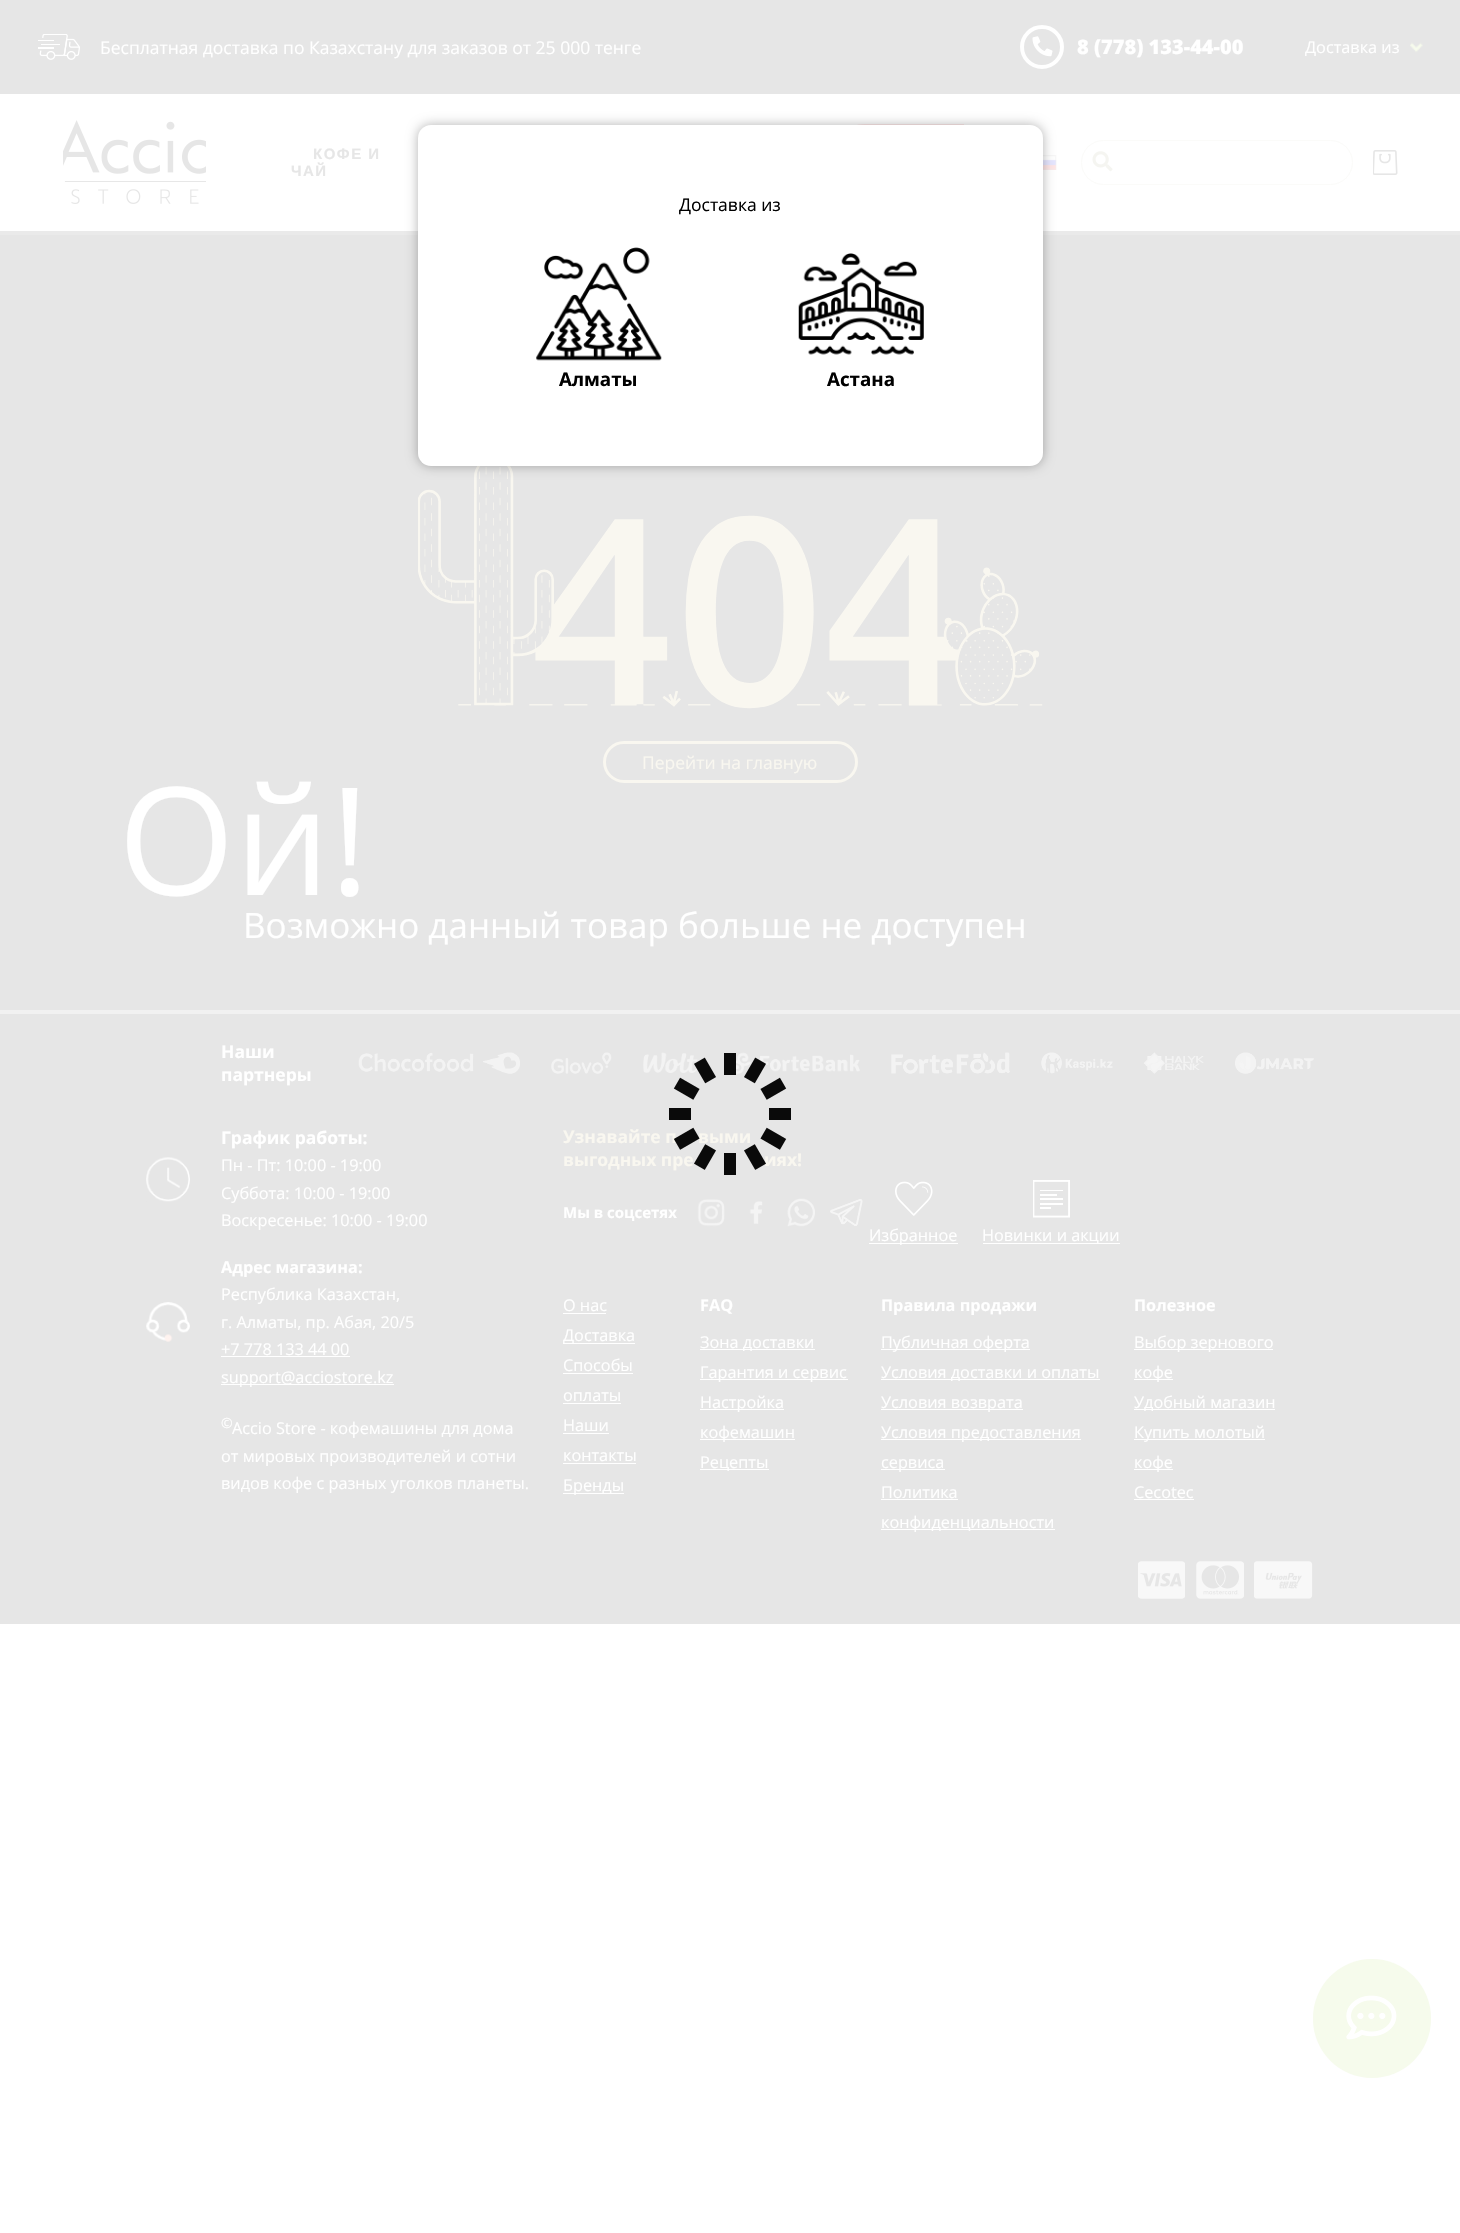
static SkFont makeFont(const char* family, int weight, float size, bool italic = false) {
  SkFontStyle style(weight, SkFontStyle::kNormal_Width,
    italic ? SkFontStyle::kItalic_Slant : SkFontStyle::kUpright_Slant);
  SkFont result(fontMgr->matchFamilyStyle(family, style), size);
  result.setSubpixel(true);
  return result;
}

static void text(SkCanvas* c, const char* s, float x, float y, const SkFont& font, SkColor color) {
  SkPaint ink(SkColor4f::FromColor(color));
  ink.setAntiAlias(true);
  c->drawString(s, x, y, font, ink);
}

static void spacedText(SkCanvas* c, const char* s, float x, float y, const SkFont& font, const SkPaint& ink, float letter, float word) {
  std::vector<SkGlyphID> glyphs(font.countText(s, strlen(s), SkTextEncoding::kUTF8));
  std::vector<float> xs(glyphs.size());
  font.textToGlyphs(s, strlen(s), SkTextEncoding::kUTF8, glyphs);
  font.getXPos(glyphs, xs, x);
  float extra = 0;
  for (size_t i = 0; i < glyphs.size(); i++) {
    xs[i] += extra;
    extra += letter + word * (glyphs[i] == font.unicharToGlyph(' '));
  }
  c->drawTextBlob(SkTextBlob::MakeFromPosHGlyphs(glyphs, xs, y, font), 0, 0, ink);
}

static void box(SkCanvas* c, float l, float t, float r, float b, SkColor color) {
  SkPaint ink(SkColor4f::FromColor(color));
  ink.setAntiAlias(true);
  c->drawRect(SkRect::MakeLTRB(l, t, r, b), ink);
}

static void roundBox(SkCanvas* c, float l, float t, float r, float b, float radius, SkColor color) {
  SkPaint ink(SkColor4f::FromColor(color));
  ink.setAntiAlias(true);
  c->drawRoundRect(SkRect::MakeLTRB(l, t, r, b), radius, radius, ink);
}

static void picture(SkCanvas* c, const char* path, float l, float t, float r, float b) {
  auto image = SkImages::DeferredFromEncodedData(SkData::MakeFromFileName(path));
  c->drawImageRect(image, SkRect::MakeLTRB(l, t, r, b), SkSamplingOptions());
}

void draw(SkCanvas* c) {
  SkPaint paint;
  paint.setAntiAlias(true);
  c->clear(0xffffffff);
  box(c, 0, 0, 1460, 94, 0xffe6e6e6);
  picture(c, "img_01.png", 38, 34, 80, 60);
  SkFont face1 = makeFont("Open Sans", 400, 17.5f);
  text(c, "Бесплатная доставка по Казахстану для заказов от 25 000 тенге", 100, 54, face1, 0xffffffff);
  paint.setStyle(SkPaint::kStroke_Style);
  paint.setStrokeWidth(4);
  paint.setColor(0xffffffff);
  c->drawCircle(1042, 47, 20, paint);
  picture(c, "img_02.png", 1032, 36, 1053, 57);
  SkFont face2 = makeFont("Open Sans", 800, 20);
  text(c, "8 (778) 133-44-00", 1077, 54, face2, 0xffffffff);
  SkFont face3 = makeFont("Open Sans", 400, 16.25f);
  text(c, "Доставка из", 1305, 53, face3, 0xffffffff);
  picture(c, "img_03.png", 1410, 42, 1423, 53);
  box(c, 0, 231, 1460, 235, 0xffeaeaea);
  picture(c, "img_04.png", 63, 120, 206, 204);
  SkFont face4 = makeFont("Liberation Sans", 700, 15);
  paint.setStyle(SkPaint::kFill_Style);
  paint.setColor(0xffe6e6e6);
  spacedText(c, "КОФЕ И", 313, 159, face4, paint, 1.5f, 0);
  spacedText(c, "ЧАЙ", 291, 176, face4, paint, 1.5f, 0);
  paint.setColor(0xffffebeb);
  c->drawPath(SkPathBuilder(SkPathFillType::kEvenOdd).moveTo(865, 124).lineTo(964, 124).lineTo(964, 184).lineTo(865, 184).cubicTo(848, 184, 835, 170, 835, 154).cubicTo(835, 137, 848, 124, 865, 124).close().moveTo(865, 126).lineTo(964, 126).lineTo(964, 181).lineTo(865, 181).cubicTo(850, 181, 838, 169, 838, 154).cubicTo(838, 139, 850, 126, 865, 126).close().detach(), paint);
  picture(c, "img_05.png", 1043, 155, 1057, 170);
  paint.setStyle(SkPaint::kStroke_Style);
  paint.setStrokeWidth(1);
  paint.setColor(0xfffbfbf9);
  c->drawRoundRect(SkRect::MakeLTRB(1081.5f, 140.5f, 1352.5f, 184.5f), 22, 22, paint);
  picture(c, "img_06.png", 1092, 151, 1113, 172);
  picture(c, "img_07.png", 1373, 150, 1398, 175);
  box(c, 0, 235, 1460, 1010, 0xffe6e6e6);
  picture(c, "img_10.png", 418, 466, 1043, 709);
  paint.setStyle(SkPaint::kFill_Style);
  paint.setColor(0x4d000000);
  paint.setMaskFilter(SkMaskFilter::MakeBlur(kNormal_SkBlurStyle, 6));
  c->drawRoundRect(SkRect::MakeLTRB(418, 125, 1043, 466), 13, 13, paint);
  paint.setMaskFilter(nullptr);
  roundBox(c, 418, 125, 1043, 466, 13, 0xffffffff);
  text(c, "Доставка из", 679, 211, face1, 0xff000000);
  picture(c, "img_08.png", 536, 247, 662, 361);
  SkFont face5 = makeFont("Open Sans", 700, 18.75f);
  text(c, "Алматы", 559, 386, face5, 0xff000000);
  picture(c, "img_09.png", 798, 253, 924, 355);
  text(c, "Астана", 827, 386, face5, 0xff000000);
  paint.setStyle(SkPaint::kStroke_Style);
  paint.setStrokeWidth(3);
  paint.setColor(0xfff9f7f0);
  c->drawRoundRect(SkRect::MakeLTRB(604.5f, 742.5f, 856.5f, 781.5f), 19.5f, 19.5f, paint);
  text(c, "Перейти на главную", 642, 769, face1, 0xfff9f7f0);
  SkFont face6 = makeFont("Open Sans", 400, 150);
  text(c, "Ой!", 118, 895, face6, 0xffffffff);
  SkFont face7 = makeFont("Open Sans", 400, 35);
  text(c, "Возможно данный товар больше не доступен", 243, 938, face7, 0xffffffff);
  box(c, 0, 1014, 1460, 1624, 0xffe6e6e6);
  box(c, 0, 1010, 1460, 1014, 0xfff1f1f1);
  SkFont face8 = makeFont("Open Sans", 700, 17.5f);
  text(c, "Наши", 221, 1058, face8, 0xffffffff);
  text(c, "партнеры", 221, 1081, face8, 0xffffffff);
  picture(c, "img_11.png", 358, 1052, 520, 1074);
  picture(c, "img_12.png", 551, 1052, 612, 1074);
  picture(c, "img_13.png", 643, 1052, 698, 1073);
  picture(c, "img_14.png", 736, 1052, 860, 1074);
  picture(c, "img_15.png", 891, 1052, 1010, 1074);
  picture(c, "img_16.png", 1041, 1052, 1113, 1074);
  picture(c, "img_17.png", 1143, 1052, 1204, 1074);
  picture(c, "img_18.png", 1235, 1052, 1314, 1074);
  picture(c, "img_19.png", 146, 1157, 190, 1202);
  text(c, "График работы:", 221, 1144, face8, 0xffffffff);
  text(c, "Пн - Пт: 10:00 - 19:00", 221, 1171, face3, 0xffffffff);
  text(c, "Суббота: 10:00 - 19:00", 221, 1199, face3, 0xffffffff);
  text(c, "Воскресенье: 10:00 - 19:00", 221, 1226, face3, 0xffffffff);
  picture(c, "img_20.png", 146, 1302, 190, 1342);
  SkFont face9 = makeFont("Open Sans", 700, 16.25f);
  text(c, "Адрес магазина:", 221, 1273, face9, 0xffffffff);
  text(c, "Республика Казахстан,", 221, 1300, face3, 0xffffffff);
  text(c, "г. Алматы, пр. Абая, 20/5", 221, 1328, face3, 0xffffffff);
  text(c, "+7 778 133 44 00", 221, 1355, face3, 0xffffffff);
  box(c, 221, 1356, 350, 1357, 0xffffffff);
  box(c, 221, 1384, 394, 1385, 0xffffffff);
  text(c, "support@acciostore.kz", 221, 1383, face3, 0xffffffff);
  SkFont face10 = makeFont("Open Sans", 400, 14);
  text(c, "©", 221, 1428, face10, 0xffffffff);
  text(c, "Accio Store - кофемашины для дома", 232, 1434, face3, 0xffffffff);
  text(c, "от мировых производителей и сотни", 221, 1462, face3, 0xffffffff);
  text(c, "видов кофе с разных уголков планеты.", 221, 1489, face3, 0xffffffff);
  text(c, "Узнавайте п", 563, 1143, face8, 0xfff9f7f0);
  text(c, "выми", 698, 1143, face8, 0xfff9f7f0);
  text(c, "выгодных пре", 563, 1166, face8, 0xfff9f7f0);
  text(c, "иях!", 764, 1166, face8, 0xfff9f7f0);
  SkFont face11 = makeFont("Open Sans", 700, 15);
  text(c, "Мы в соцсетях", 563, 1218, face11, 0xffffffff);
  picture(c, "img_21.png", 697, 1199, 725, 1227);
  picture(c, "img_22.png", 749, 1201, 763, 1225);
  picture(c, "img_23.png", 787, 1198, 815, 1227);
  picture(c, "img_24.png", 830, 1199, 863, 1226);
  picture(c, "img_25.png", 895, 1181, 933, 1216);
  box(c, 869, 1243, 958, 1244, 0xffffffff);
  text(c, "Избранное", 869, 1241, face3, 0xffffffff);
  picture(c, "img_26.png", 1033, 1180, 1070, 1218);
  box(c, 983, 1243, 1120, 1244, 0xffffffff);
  text(c, "Новинки и акции", 982, 1241, face3, 0xffffffff);
  text(c, "О нас", 563, 1311, face3, 0xffffffff);
  box(c, 563, 1313, 606, 1314, 0xffffffff);
  box(c, 563, 1343, 635, 1344, 0xffffffff);
  text(c, "Доставка", 563, 1341, face3, 0xffffffff);
  text(c, "Способы", 563, 1371, face3, 0xffffffff);
  box(c, 563, 1373, 633, 1374, 0xffffffff);
  text(c, "оплаты", 563, 1401, face3, 0xffffffff);
  box(c, 563, 1403, 621, 1404, 0xffffffff);
  text(c, "Наши", 563, 1431, face3, 0xffffffff);
  box(c, 563, 1433, 609, 1434, 0xffffffff);
  text(c, "контакты", 563, 1461, face3, 0xffffffff);
  box(c, 563, 1463, 636, 1464, 0xffffffff);
  box(c, 563, 1493, 624, 1494, 0xffffffff);
  text(c, "Бренды", 563, 1491, face3, 0xffffffff);
  text(c, "FAQ", 700, 1311, face9, 0xffffffff);
  box(c, 700, 1349, 815, 1350, 0xffffffff);
  text(c, "Зона доставки", 700, 1348, face3, 0xffffffff);
  box(c, 700, 1379, 848, 1380, 0xffffffff);
  text(c, "Гарантия и сервис", 700, 1378, face3, 0xffffffff);
  box(c, 700, 1409, 784, 1410, 0xffffffff);
  text(c, "Настройка", 700, 1408, face3, 0xffffffff);
  box(c, 700, 1439, 795, 1440, 0xffffffff);
  text(c, "кофемашин", 700, 1438, face3, 0xffffffff);
  box(c, 700, 1469, 769, 1470, 0xffffffff);
  text(c, "Рецепты", 700, 1468, face3, 0xffffffff);
  text(c, "Правила продажи", 881, 1311, face9, 0xffffffff);
  box(c, 881, 1349, 1030, 1350, 0xffffffff);
  text(c, "Публичная оферта", 881, 1348, face3, 0xffffffff);
  box(c, 881, 1379, 1100, 1380, 0xffffffff);
  text(c, "Условия доставки и оплаты", 881, 1378, face3, 0xffffffff);
  box(c, 881, 1409, 1023, 1410, 0xffffffff);
  text(c, "Условия возврата", 881, 1408, face3, 0xffffffff);
  box(c, 881, 1439, 1081, 1440, 0xffffffff);
  text(c, "Условия предоставления", 881, 1438, face3, 0xffffffff);
  box(c, 881, 1469, 945, 1470, 0xffffffff);
  text(c, "сервиса", 881, 1468, face3, 0xffffffff);
  text(c, "Политика", 881, 1498, face3, 0xffffffff);
  box(c, 881, 1499, 958, 1500, 0xffffffff);
  box(c, 881, 1529, 1055, 1530, 0xffffffff);
  text(c, "конфиденциальности", 881, 1528, face3, 0xffffffff);
  text(c, "Полезное", 1134, 1311, face9, 0xffffffff);
  box(c, 1134, 1349, 1273, 1350, 0xffffffff);
  text(c, "Выбор зернового", 1134, 1348, face3, 0xffffffff);
  box(c, 1134, 1379, 1173, 1380, 0xffffffff);
  text(c, "кофе", 1134, 1378, face3, 0xffffffff);
  box(c, 1134, 1409, 1275, 1410, 0xffffffff);
  text(c, "Удобный магазин", 1134, 1408, face3, 0xffffffff);
  box(c, 1134, 1439, 1265, 1440, 0xffffffff);
  text(c, "Купить молотый", 1134, 1438, face3, 0xffffffff);
  box(c, 1134, 1469, 1173, 1470, 0xffffffff);
  text(c, "кофе", 1134, 1468, face3, 0xffffffff);
  text(c, "Cecotec", 1134, 1498, face3, 0xffffffff);
  box(c, 1134, 1499, 1194, 1500, 0xffffffff);
  picture(c, "img_27.png", 1138, 1561, 1185, 1599);
  picture(c, "img_28.png", 1196, 1561, 1244, 1599);
  picture(c, "img_29.png", 1254, 1561, 1313, 1599);
  picture(c, "img_30.png", 669, 1053, 791, 1175);
  roundBox(c, 1313, 1959, 1431, 2078, 59, 0xfff6fbec);
  picture(c, "img_31.png", 1346, 1995, 1397, 2040);
}
